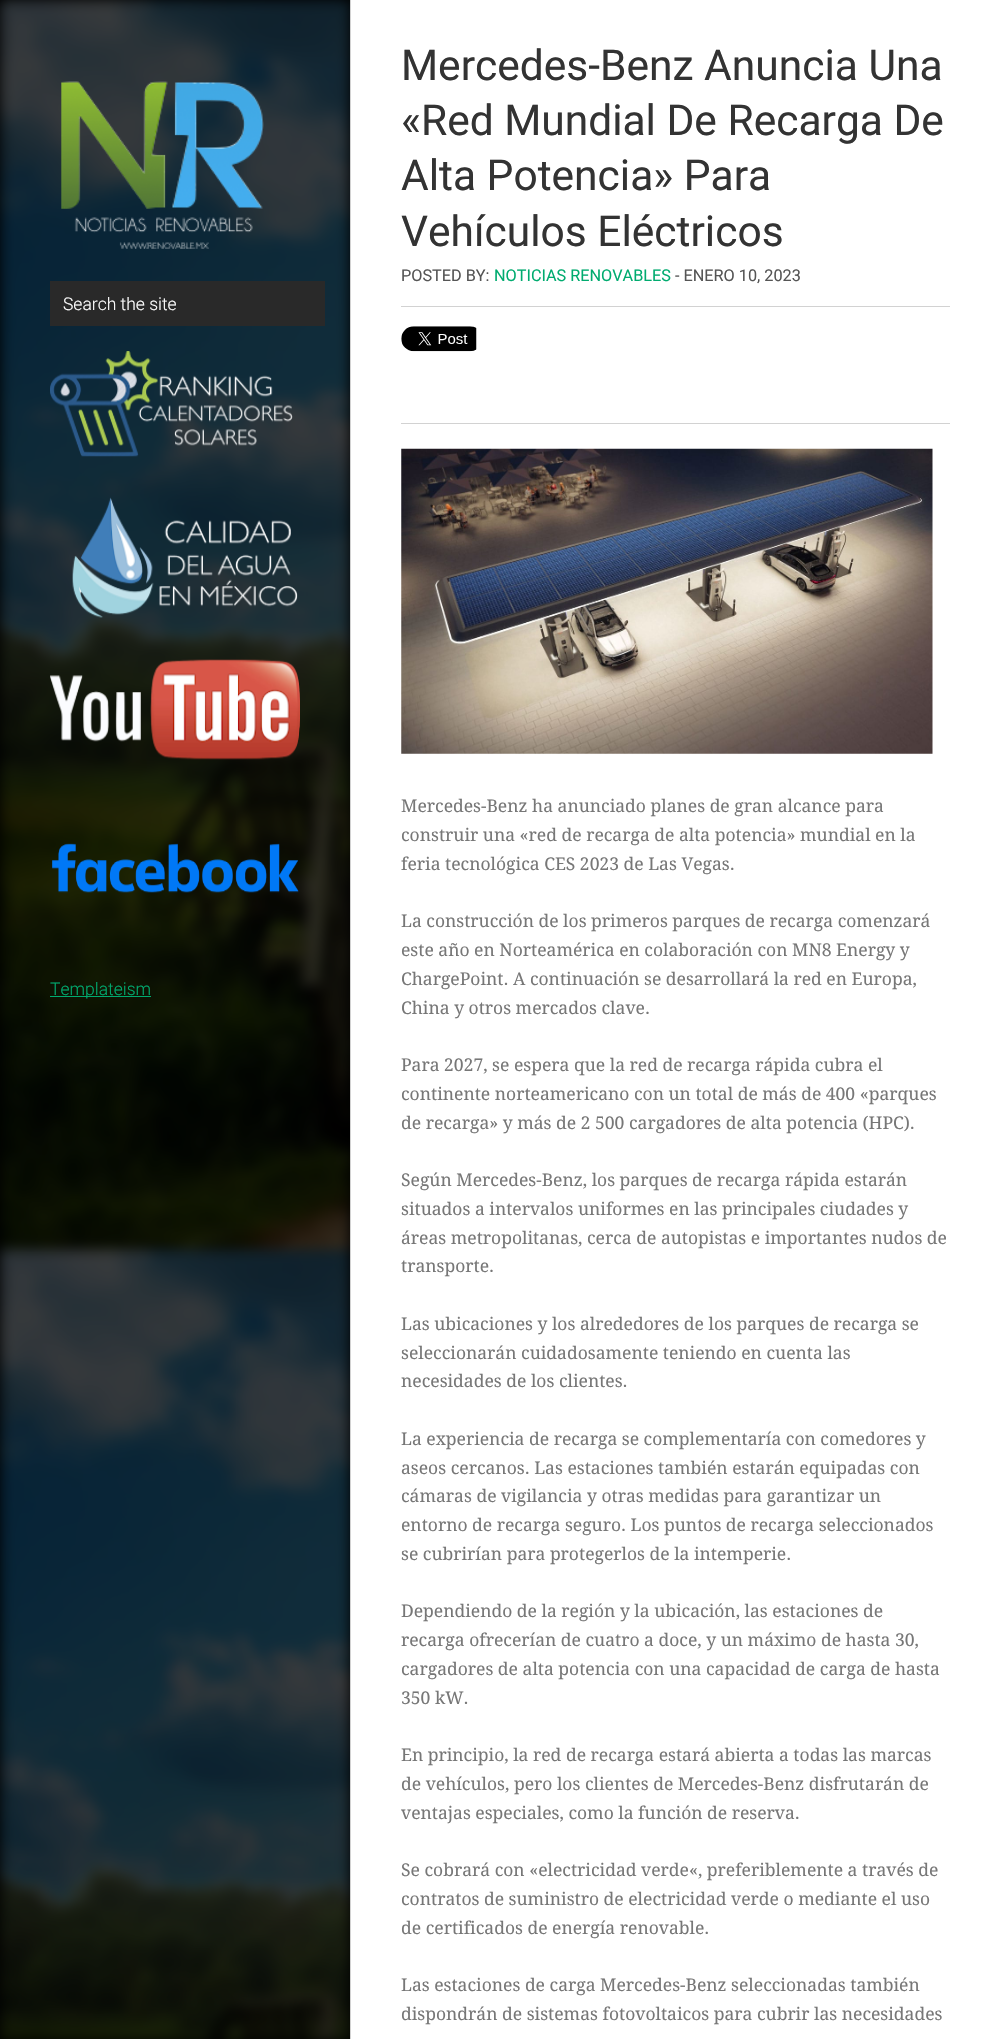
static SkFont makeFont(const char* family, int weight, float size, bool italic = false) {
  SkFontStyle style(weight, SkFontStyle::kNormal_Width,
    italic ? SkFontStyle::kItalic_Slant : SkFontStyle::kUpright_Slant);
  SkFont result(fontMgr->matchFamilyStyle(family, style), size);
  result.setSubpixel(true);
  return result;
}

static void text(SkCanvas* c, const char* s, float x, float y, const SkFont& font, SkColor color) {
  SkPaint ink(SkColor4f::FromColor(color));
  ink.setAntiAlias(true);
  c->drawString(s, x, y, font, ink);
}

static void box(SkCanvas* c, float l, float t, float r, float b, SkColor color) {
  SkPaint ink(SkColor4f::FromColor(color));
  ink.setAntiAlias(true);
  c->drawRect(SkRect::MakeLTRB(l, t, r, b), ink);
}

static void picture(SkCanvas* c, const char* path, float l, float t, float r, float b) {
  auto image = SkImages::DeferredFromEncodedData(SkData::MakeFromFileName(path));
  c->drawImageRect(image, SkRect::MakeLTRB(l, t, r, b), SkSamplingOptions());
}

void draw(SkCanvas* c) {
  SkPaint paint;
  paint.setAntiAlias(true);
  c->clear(0xffffffff);
  box(c, 0, 0, 350, 2039, 0xff000000);
  picture(c, "img_01.png", 0, 0, 350, 2039);
  picture(c, "img_02.png", 61, 81, 264, 249);
  box(c, 50, 281, 325, 326, 0xff292929);
  SkFont face1 = makeFont("Roboto", 300, 17.5f);
  text(c, "Search the site", 63, 310, face1, 0xffffffff);
  picture(c, "img_03.png", 50, 351, 293, 457);
  picture(c, "img_04.png", 72, 497, 298, 618);
  picture(c, "img_05.png", 50, 659, 300, 760);
  picture(c, "img_06.png", 52, 843, 299, 893);
  box(c, 50, 996, 151, 997, 0xff00ab6f);
  text(c, "Templateism", 50, 995, face1, 0xff00ab6f);
  box(c, 350, 0, 351, 2039, 0xffd2d2d2);
  SkFont face2 = makeFont("Roboto", 400, 42.5f);
  text(c, "Mercedes-Benz Anuncia Una", 401, 80, face2, 0xff333333);
  text(c, "«Red Mundial De Recarga De", 401, 135, face2, 0xff333333);
  text(c, "Alta Potencia» Para", 401, 190, face2, 0xff333333);
  text(c, "Vehículos Eléctricos", 401, 246, face2, 0xff333333);
  box(c, 401, 306, 950, 307, 0xffd2d2d2);
  SkFont face3 = makeFont("Roboto", 400, 16.25f);
  text(c, "POSTED BY:", 401, 281, face3, 0xff555555);
  text(c, "NOTICIAS RENOVABLES", 494, 281, face3, 0xff00ab6f);
  text(c, "- ENERO 10, 2023", 675, 281, face3, 0xff555555);
  box(c, 401, 423, 950, 424, 0xffd2d2d2);
  picture(c, "img_07.png", 401, 326, 477, 352);
  picture(c, "img_08.png", 401, 448, 933, 754);
  SkFont face4 = makeFont("Droid Serif", 400, 17.5f);
  text(c, "Mercedes-Benz ha anunciado planes de gran alcance para", 401, 812, face4, 0xff777777);
  text(c, "construir una «red de recarga de alta potencia» mundial en la", 401, 841, face4, 0xff777777);
  text(c, "feria tecnológica CES 2023 de Las Vegas.", 401, 870, face4, 0xff777777);
  text(c, "La construcción de los primeros parques de recarga comenzará", 401, 927, face4, 0xff777777);
  text(c, "este año en Norteamérica en colaboración con MN8 Energy y", 401, 956, face4, 0xff777777);
  text(c, "ChargePoint. A continuación se desarrollará la red en Europa,", 401, 985, face4, 0xff777777);
  text(c, "China y otros mercados clave.", 401, 1014, face4, 0xff777777);
  text(c, "Para 2027, se espera que la red de recarga rápida cubra el", 401, 1071, face4, 0xff777777);
  text(c, "continente norteamericano con un total de más de 400 «parques", 401, 1100, face4, 0xff777777);
  text(c, "de recarga» y más de 2 500 cargadores de alta potencia (HPC).", 401, 1129, face4, 0xff777777);
  text(c, "Según Mercedes-Benz, los parques de recarga rápida estarán", 401, 1186, face4, 0xff777777);
  text(c, "situados a intervalos uniformes en las principales ciudades y", 401, 1215, face4, 0xff777777);
  text(c, "áreas metropolitanas, cerca de autopistas e importantes nudos de", 401, 1244, face4, 0xff777777);
  text(c, "transporte.", 401, 1272, face4, 0xff777777);
  text(c, "Las ubicaciones y los alrededores de los parques de recarga se", 401, 1330, face4, 0xff777777);
  text(c, "seleccionarán cuidadosamente teniendo en cuenta las", 401, 1359, face4, 0xff777777);
  text(c, "necesidades de los clientes.", 401, 1387, face4, 0xff777777);
  text(c, "La experiencia de recarga se complementaría con comedores y", 401, 1445, face4, 0xff777777);
  text(c, "aseos cercanos. Las estaciones también estarán equipadas con", 401, 1474, face4, 0xff777777);
  text(c, "cámaras de vigilancia y otras medidas para garantizar un", 401, 1502, face4, 0xff777777);
  text(c, "entorno de recarga seguro. Los puntos de recarga seleccionados", 401, 1531, face4, 0xff777777);
  text(c, "se cubrirían para protegerlos de la intemperie.", 401, 1560, face4, 0xff777777);
  text(c, "Dependiendo de la región y la ubicación, las estaciones de", 401, 1617, face4, 0xff777777);
  text(c, "recarga ofrecerían de cuatro a doce, y un máximo de hasta 30,", 401, 1646, face4, 0xff777777);
  text(c, "cargadores de alta potencia con una capacidad de carga de hasta", 401, 1675, face4, 0xff777777);
  text(c, "350 kW.", 401, 1704, face4, 0xff777777);
  text(c, "En principio, la red de recarga estará abierta a todas las marcas", 401, 1761, face4, 0xff777777);
  text(c, "de vehículos, pero los clientes de Mercedes-Benz disfrutarán de", 401, 1790, face4, 0xff777777);
  text(c, "ventajas especiales, como la función de reserva.", 401, 1819, face4, 0xff777777);
  text(c, "Se cobrará con «electricidad verde«, preferiblemente a través de", 401, 1876, face4, 0xff777777);
  text(c, "contratos de suministro de electricidad verde o mediante el uso", 401, 1905, face4, 0xff777777);
  text(c, "de certificados de energía renovable.", 401, 1934, face4, 0xff777777);
  text(c, "Las estaciones de carga Mercedes-Benz seleccionadas también", 401, 1991, face4, 0xff777777);
  text(c, "dispondrán de sistemas fotovoltaicos para cubrir las necesidades", 401, 2020, face4, 0xff777777);
}
